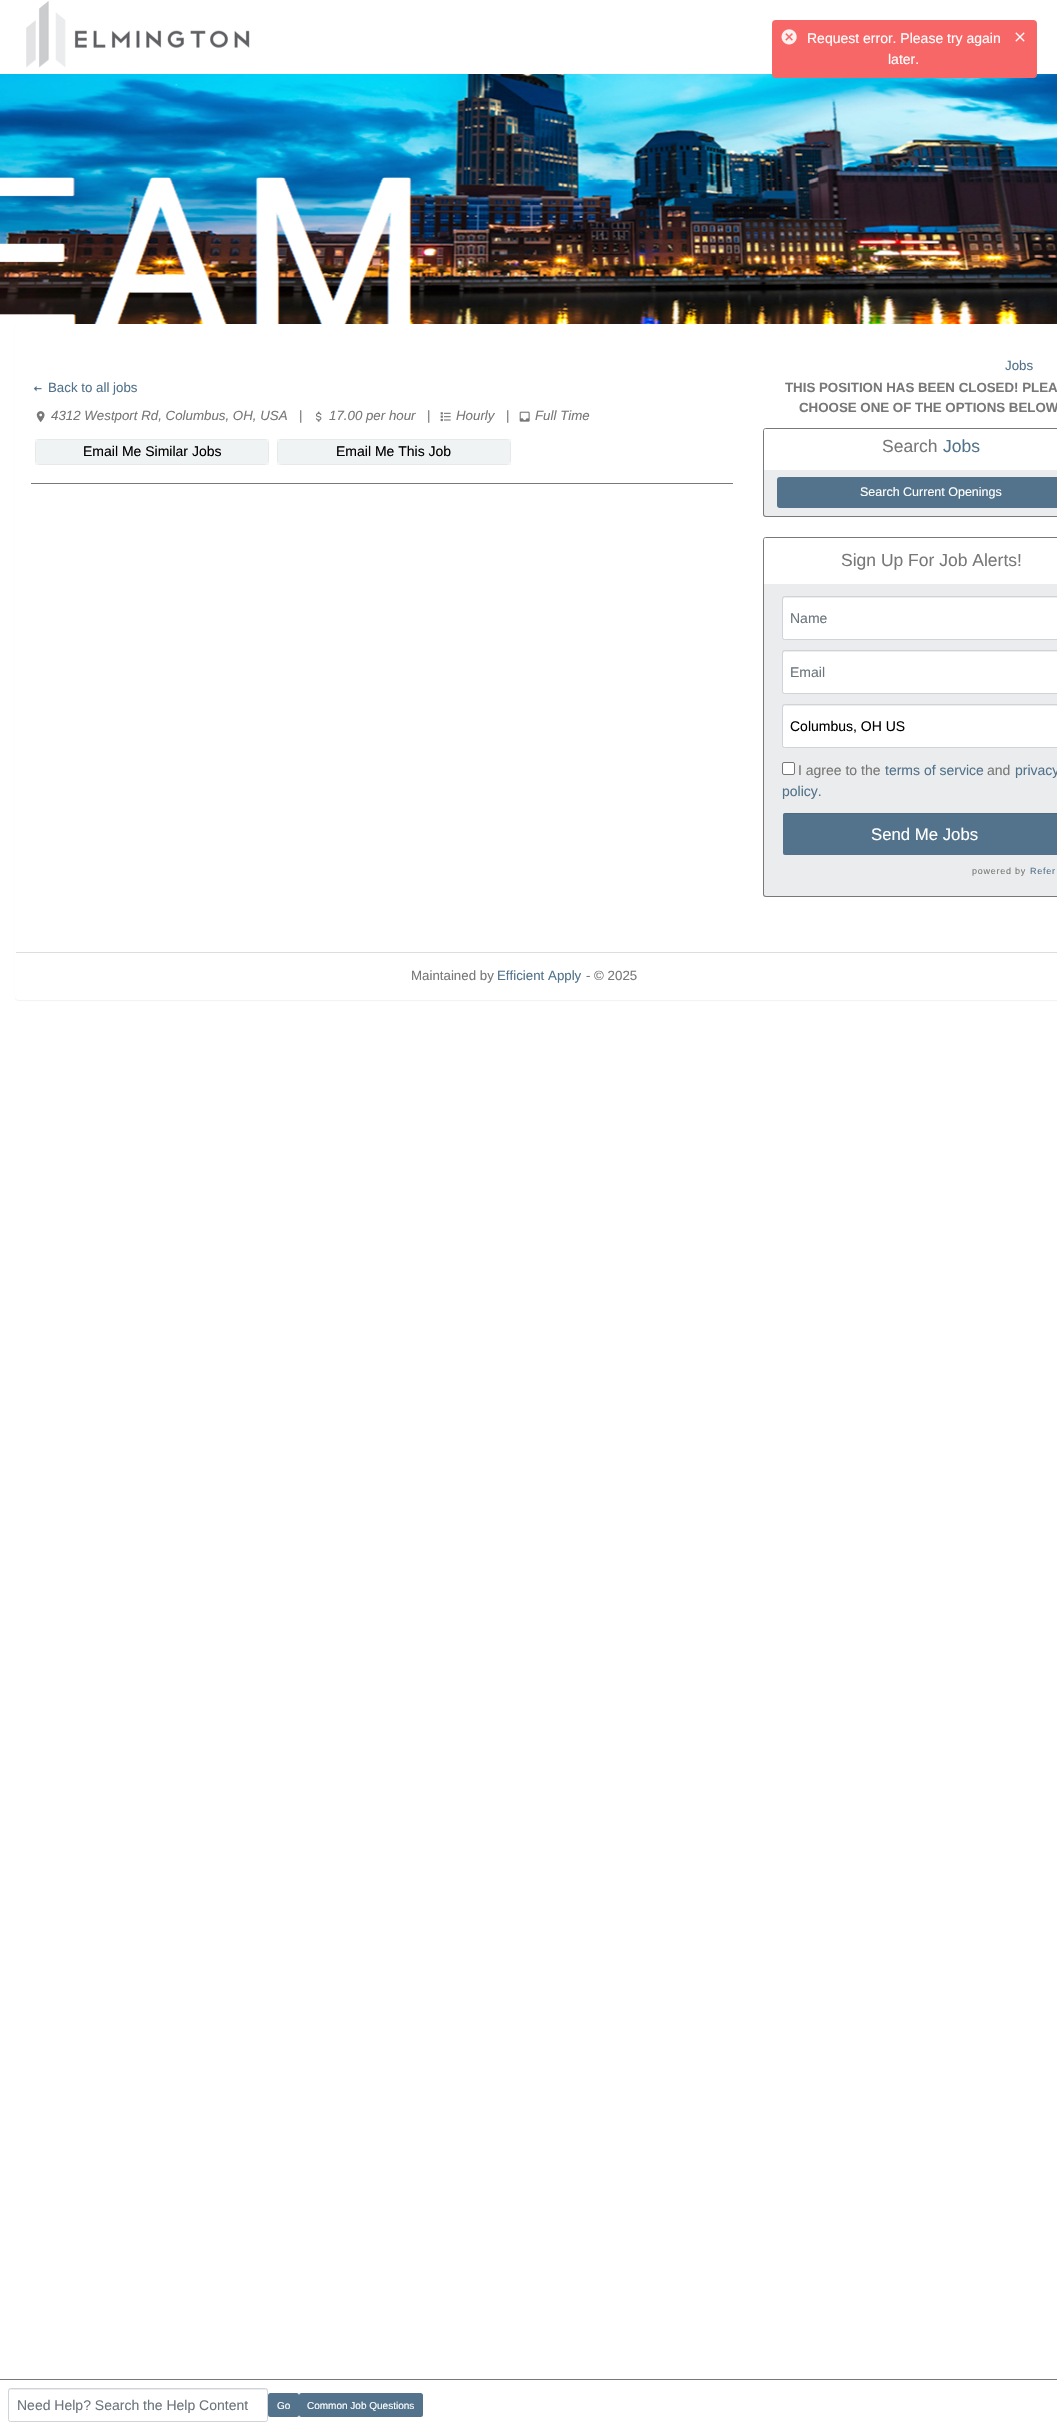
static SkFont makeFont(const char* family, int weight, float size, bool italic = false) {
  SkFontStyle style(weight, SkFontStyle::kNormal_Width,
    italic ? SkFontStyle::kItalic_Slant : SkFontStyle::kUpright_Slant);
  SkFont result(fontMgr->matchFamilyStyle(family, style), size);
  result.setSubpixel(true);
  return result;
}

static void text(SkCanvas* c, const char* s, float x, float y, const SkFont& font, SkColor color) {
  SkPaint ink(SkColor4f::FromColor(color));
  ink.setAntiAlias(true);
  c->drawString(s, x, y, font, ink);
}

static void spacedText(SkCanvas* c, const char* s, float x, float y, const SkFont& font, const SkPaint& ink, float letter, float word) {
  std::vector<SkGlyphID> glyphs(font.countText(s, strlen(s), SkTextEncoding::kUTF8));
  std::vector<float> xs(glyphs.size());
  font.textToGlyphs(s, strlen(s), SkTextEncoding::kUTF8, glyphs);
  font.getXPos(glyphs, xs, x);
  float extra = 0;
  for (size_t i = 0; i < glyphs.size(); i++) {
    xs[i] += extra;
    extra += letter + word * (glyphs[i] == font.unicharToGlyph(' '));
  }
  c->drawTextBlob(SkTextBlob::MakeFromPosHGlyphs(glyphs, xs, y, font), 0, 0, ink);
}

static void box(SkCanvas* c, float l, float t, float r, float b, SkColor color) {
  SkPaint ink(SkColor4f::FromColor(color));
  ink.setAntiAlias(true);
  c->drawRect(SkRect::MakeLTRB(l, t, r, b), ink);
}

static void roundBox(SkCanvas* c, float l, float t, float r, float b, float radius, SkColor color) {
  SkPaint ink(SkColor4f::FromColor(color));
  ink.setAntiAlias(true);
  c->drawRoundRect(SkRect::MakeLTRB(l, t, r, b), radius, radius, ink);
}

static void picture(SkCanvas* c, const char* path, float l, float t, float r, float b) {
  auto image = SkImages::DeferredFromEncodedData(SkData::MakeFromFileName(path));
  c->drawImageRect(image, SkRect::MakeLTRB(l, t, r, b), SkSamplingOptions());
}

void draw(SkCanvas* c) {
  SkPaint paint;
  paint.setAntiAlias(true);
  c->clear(0xffffffff);
  picture(c, "img_01.png", 0, 74, 1057, 324);
  roundBox(c, 772, 20, 1037, 78, 4, 0xfff65555);
  picture(c, "img_02.png", 781, 29, 797, 45);
  roundBox(c, 772, 20, 1037, 78, 4, 0x1affffff);
  SkFont face1 = makeFont("Liberation Sans", 400, 14);
  text(c, "Request error. Please try again", 807, 43, face1, 0xffffffff);
  text(c, "later.", 888, 64, face1, 0xffffffff);
  picture(c, "img_03.png", 1015, 32, 1025, 42);
  picture(c, "img_04.png", 26, 1, 250, 68);
  paint.setColor(0x0d000000);
  paint.setMaskFilter(SkMaskFilter::MakeBlur(kNormal_SkBlurStyle, 0.5f));
  c->drawRoundRect(SkRect::MakeLTRB(15, 326, 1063, 1001), 4, 4, paint);
  paint.setMaskFilter(nullptr);
  roundBox(c, 15, 325, 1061, 1000, 4, 0xffffffff);
  SkFont face2 = makeFont("Liberation Sans", 400, 13.3f);
  text(c, "Jobs", 1005, 370, face2, 0xff52738b);
  picture(c, "img_05.png", 33, 386, 42, 392);
  text(c, "Back to all jobs", 48, 392, face2, 0xff52738b);
  picture(c, "img_06.png", 36, 411, 45, 423);
  SkFont face3 = makeFont("Liberation Sans", 400, 13.3f, true);
  text(c, "4312 Westport Rd, Columbus, OH, USA", 51, 420, face3, 0xff787878);
  text(c, "|", 299, 420, face2, 0xff787878);
  picture(c, "img_07.png", 315, 411, 322, 422);
  text(c, "17.00 per hour", 329, 420, face3, 0xff787878);
  text(c, "|", 427, 420, face2, 0xff787878);
  picture(c, "img_08.png", 440, 412, 451, 422);
  text(c, "Hourly", 456, 420, face3, 0xff787878);
  text(c, "|", 506, 420, face2, 0xff787878);
  picture(c, "img_09.png", 519, 411, 530, 422);
  text(c, "Full Time", 535, 420, face3, 0xff787878);
  roundBox(c, 35, 439, 269, 465, 5, 0xfff0f3f4);
  paint.setStyle(SkPaint::kStroke_Style);
  paint.setStrokeWidth(1);
  paint.setColor(0x0a000000);
  c->drawRect(SkRect::MakeLTRB(35.5f, 439.5f, 268.5f, 464.5f), paint);
  text(c, "Email Me Similar Jobs", 83, 456, face1, 0xff000000);
  roundBox(c, 277, 439, 511, 465, 5, 0xfff0f3f4);
  c->drawRect(SkRect::MakeLTRB(277.5f, 439.5f, 510.5f, 464.5f), paint);
  text(c, "Email Me This Job", 336, 456, face1, 0xff000000);
  box(c, 31, 483, 733, 484, 0xff787878);
  SkFont face4 = makeFont("Liberation Sans", 700, 13.3f);
  text(c, "THIS POSITION HAS BEEN CLOSED! PLEA", 785, 392, face4, 0xff787878);
  text(c, "CHOOSE ONE OF THE OPTIONS BELOW", 799, 412, face4, 0xff787878);
  paint.setColor(0xff787878);
  c->drawPath(SkPathBuilder().moveTo(765.5f, 428.5f).lineTo(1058.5f, 428.5f).cubicTo(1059.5f, 428.5f, 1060.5f, 429.5f, 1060.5f, 430.5f).lineTo(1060.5f, 470.5f).lineTo(763.5f, 470.5f).lineTo(763.5f, 430.5f).cubicTo(763.5f, 429.5f, 764.5f, 428.5f, 765.5f, 428.5f).close().detach(), paint);
  SkFont face5 = makeFont("Liberation Sans", 400, 17.5f);
  text(c, "Search", 882, 452, face5, 0xff787878);
  text(c, "Jobs", 943, 452, face5, 0xff52738b);
  paint.setStyle(SkPaint::kFill_Style);
  paint.setColor(0xffebeced);
  c->drawPath(SkPathBuilder().moveTo(764, 470).lineTo(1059, 470).lineTo(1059, 514.5f).cubicTo(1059, 515.5f, 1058.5f, 516, 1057.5f, 516).lineTo(765.5f, 516).cubicTo(764.5f, 516, 764, 515.5f, 764, 514.5f).close().detach(), paint);
  paint.setColor(0xff787878);
  c->drawPath(SkPathBuilder(SkPathFillType::kEvenOdd).moveTo(763, 470).lineTo(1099, 470).lineTo(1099, 514).cubicTo(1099, 516, 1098, 517, 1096, 517).lineTo(766, 517).cubicTo(764, 517, 763, 516, 763, 514).close().moveTo(764, 470).lineTo(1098, 470).lineTo(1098, 514).cubicTo(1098, 515, 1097, 516, 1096, 516).lineTo(766, 516).cubicTo(765, 516, 764, 515, 764, 514).close().detach(), paint);
  roundBox(c, 777, 477, 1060, 508, 3, 0xff52738b);
  SkFont face6 = makeFont("Liberation Sans", 400, 12.5f);
  text(c, "Search Current Openings", 860, 496, face6, 0xffffffff);
  paint.setStyle(SkPaint::kStroke_Style);
  c->drawPath(SkPathBuilder().moveTo(765.5f, 537.5f).lineTo(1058.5f, 537.5f).cubicTo(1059.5f, 537.5f, 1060.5f, 538.5f, 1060.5f, 539.5f).lineTo(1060.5f, 584.5f).lineTo(763.5f, 584.5f).lineTo(763.5f, 539.5f).cubicTo(763.5f, 538.5f, 764.5f, 537.5f, 765.5f, 537.5f).close().detach(), paint);
  text(c, "Sign Up For Job Alerts!", 841, 566, face5, 0xff787878);
  paint.setStyle(SkPaint::kFill_Style);
  paint.setColor(0xffebeced);
  c->drawPath(SkPathBuilder().moveTo(764, 584).lineTo(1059, 584).lineTo(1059, 894.5f).cubicTo(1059, 895.5f, 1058.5f, 896, 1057.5f, 896).lineTo(765.5f, 896).cubicTo(764.5f, 896, 764, 895.5f, 764, 894.5f).close().detach(), paint);
  paint.setColor(0xff787878);
  c->drawPath(SkPathBuilder(SkPathFillType::kEvenOdd).moveTo(763, 584).lineTo(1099, 584).lineTo(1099, 894).cubicTo(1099, 896, 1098, 897, 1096, 897).lineTo(766, 897).cubicTo(764, 897, 763, 896, 763, 894).close().moveTo(764, 584).lineTo(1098, 584).lineTo(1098, 894).cubicTo(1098, 895, 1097, 896, 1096, 896).lineTo(766, 896).cubicTo(765, 896, 764, 895, 764, 894).close().detach(), paint);
  roundBox(c, 783, 597, 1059, 639, 1.5f, 0xffffffff);
  paint.setColor(0x12000000);
  c->drawPath(SkPathBuilder().moveTo(784, 598).lineTo(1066, 598).lineTo(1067, 600).cubicTo(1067, 599, 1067, 597, 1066, 597).lineTo(784, 597).lineTo(783, 597).lineTo(783, 600).close().detach(), paint);
  paint.setStyle(SkPaint::kStroke_Style);
  paint.setColor(0xffced4da);
  c->drawRoundRect(SkRect::MakeLTRB(782.5f, 596.5f, 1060.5f, 639.5f), 2, 2, paint);
  text(c, "Name", 790, 623, face1, 0xff6c757d);
  roundBox(c, 783, 651, 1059, 693, 1.5f, 0xffffffff);
  paint.setStyle(SkPaint::kFill_Style);
  paint.setColor(0x12000000);
  c->drawPath(SkPathBuilder().moveTo(784, 652).lineTo(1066, 652).lineTo(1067, 654).cubicTo(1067, 653, 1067, 651, 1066, 651).lineTo(784, 651).lineTo(783, 651).lineTo(783, 654).close().detach(), paint);
  paint.setStyle(SkPaint::kStroke_Style);
  paint.setColor(0xffced4da);
  c->drawRoundRect(SkRect::MakeLTRB(782.5f, 650.5f, 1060.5f, 693.5f), 2, 2, paint);
  text(c, "Email", 790, 677, face1, 0xff6c757d);
  roundBox(c, 783, 705, 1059, 747, 1.5f, 0xffffffff);
  paint.setStyle(SkPaint::kFill_Style);
  paint.setColor(0x12000000);
  c->drawPath(SkPathBuilder().moveTo(784, 706).lineTo(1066, 706).lineTo(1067, 708).cubicTo(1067, 707, 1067, 705, 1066, 705).lineTo(784, 705).lineTo(783, 705).lineTo(783, 708).close().detach(), paint);
  paint.setStyle(SkPaint::kStroke_Style);
  paint.setColor(0xffced4da);
  c->drawRoundRect(SkRect::MakeLTRB(782.5f, 704.5f, 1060.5f, 747.5f), 2, 2, paint);
  text(c, "Columbus, OH US", 790, 731, face1, 0xff000000);
  paint.setStyle(SkPaint::kFill_Style);
  paint.setColor(0xffffffff);
  c->drawRoundRect(SkRect::MakeLTRB(782.5f, 762.5f, 794.5f, 774.5f), 1.5f, 1.5f, paint);
  paint.setStyle(SkPaint::kStroke_Style);
  paint.setColor(0xff767676);
  c->drawRoundRect(SkRect::MakeLTRB(782.5f, 762.5f, 794.5f, 774.5f), 1.5f, 1.5f, paint);
  text(c, "I agree to the", 798, 775, face1, 0xff787878);
  text(c, "terms of service", 885, 775, face1, 0xff52738b);
  text(c, "and", 987, 775, face1, 0xff787878);
  text(c, "privacy", 1015, 775, face1, 0xff52738b);
  text(c, "policy.", 782, 796, face1, 0xff52738b);
  roundBox(c, 783, 813, 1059, 855, 2, 0xff52738b);
  paint.setStyle(SkPaint::kFill_Style);
  paint.setColor(0x12000000);
  c->drawPath(SkPathBuilder().moveTo(785, 814).lineTo(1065, 814).cubicTo(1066, 814, 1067, 815, 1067, 816).cubicTo(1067, 815, 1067, 813, 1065, 813).lineTo(785, 813).cubicTo(783, 813, 783, 815, 783, 816).cubicTo(783, 815, 784, 814, 785, 814).close().detach(), paint);
  SkFont face7 = makeFont("Liberation Sans", 400, 16.75f);
  text(c, "Send Me Jobs", 871, 840, face7, 0xffffffff);
  SkFont face8 = makeFont("Liberation Sans", 400, 9);
  paint.setColor(0xff787878);
  spacedText(c, "powered by", 972, 874, face8, paint, 0.75f, 0);
  paint.setColor(0xff52738b);
  spacedText(c, "Refer", 1030, 874, face8, paint, 0.75f, 0);
  box(c, 16, 952, 1057, 953, 0xffdddddd);
  text(c, "Maintained by", 411, 980, face2, 0xff787878);
  text(c, "Efficient Apply", 497, 980, face2, 0xff52738b);
  text(c, "- © 2025", 586, 980, face2, 0xff787878);
  box(c, 0, 2379, 1057, 2380, 0xff787878);
  paint.setColor(0xffececec);
  c->drawPath(SkPathBuilder().moveTo(10, 2390).lineTo(266, 2390).lineTo(267, 2392).lineTo(267, 2390).cubicTo(267, 2390, 266, 2389, 266, 2389).lineTo(10, 2389).cubicTo(10, 2389, 9, 2390, 9, 2390).lineTo(9, 2392).close().detach(), paint);
  paint.setStyle(SkPaint::kStroke_Style);
  paint.setColor(0xffced4da);
  c->drawRoundRect(SkRect::MakeLTRB(8.5f, 2388.5f, 267.5f, 2421.5f), 2, 2, paint);
  text(c, "Need Help? Search the Help Content", 17, 2410, face1, 0xff6c757d);
  roundBox(c, 268, 2393, 299, 2417, 2.5f, 0xff52738b);
  SkFont face9 = makeFont("Liberation Sans", 400, 10);
  text(c, "Go", 277, 2409, face9, 0xffffffff);
  roundBox(c, 299, 2393, 423, 2417, 2.5f, 0xff52738b);
  text(c, "Common Job Questions", 307, 2409, face9, 0xffffffff);
}
